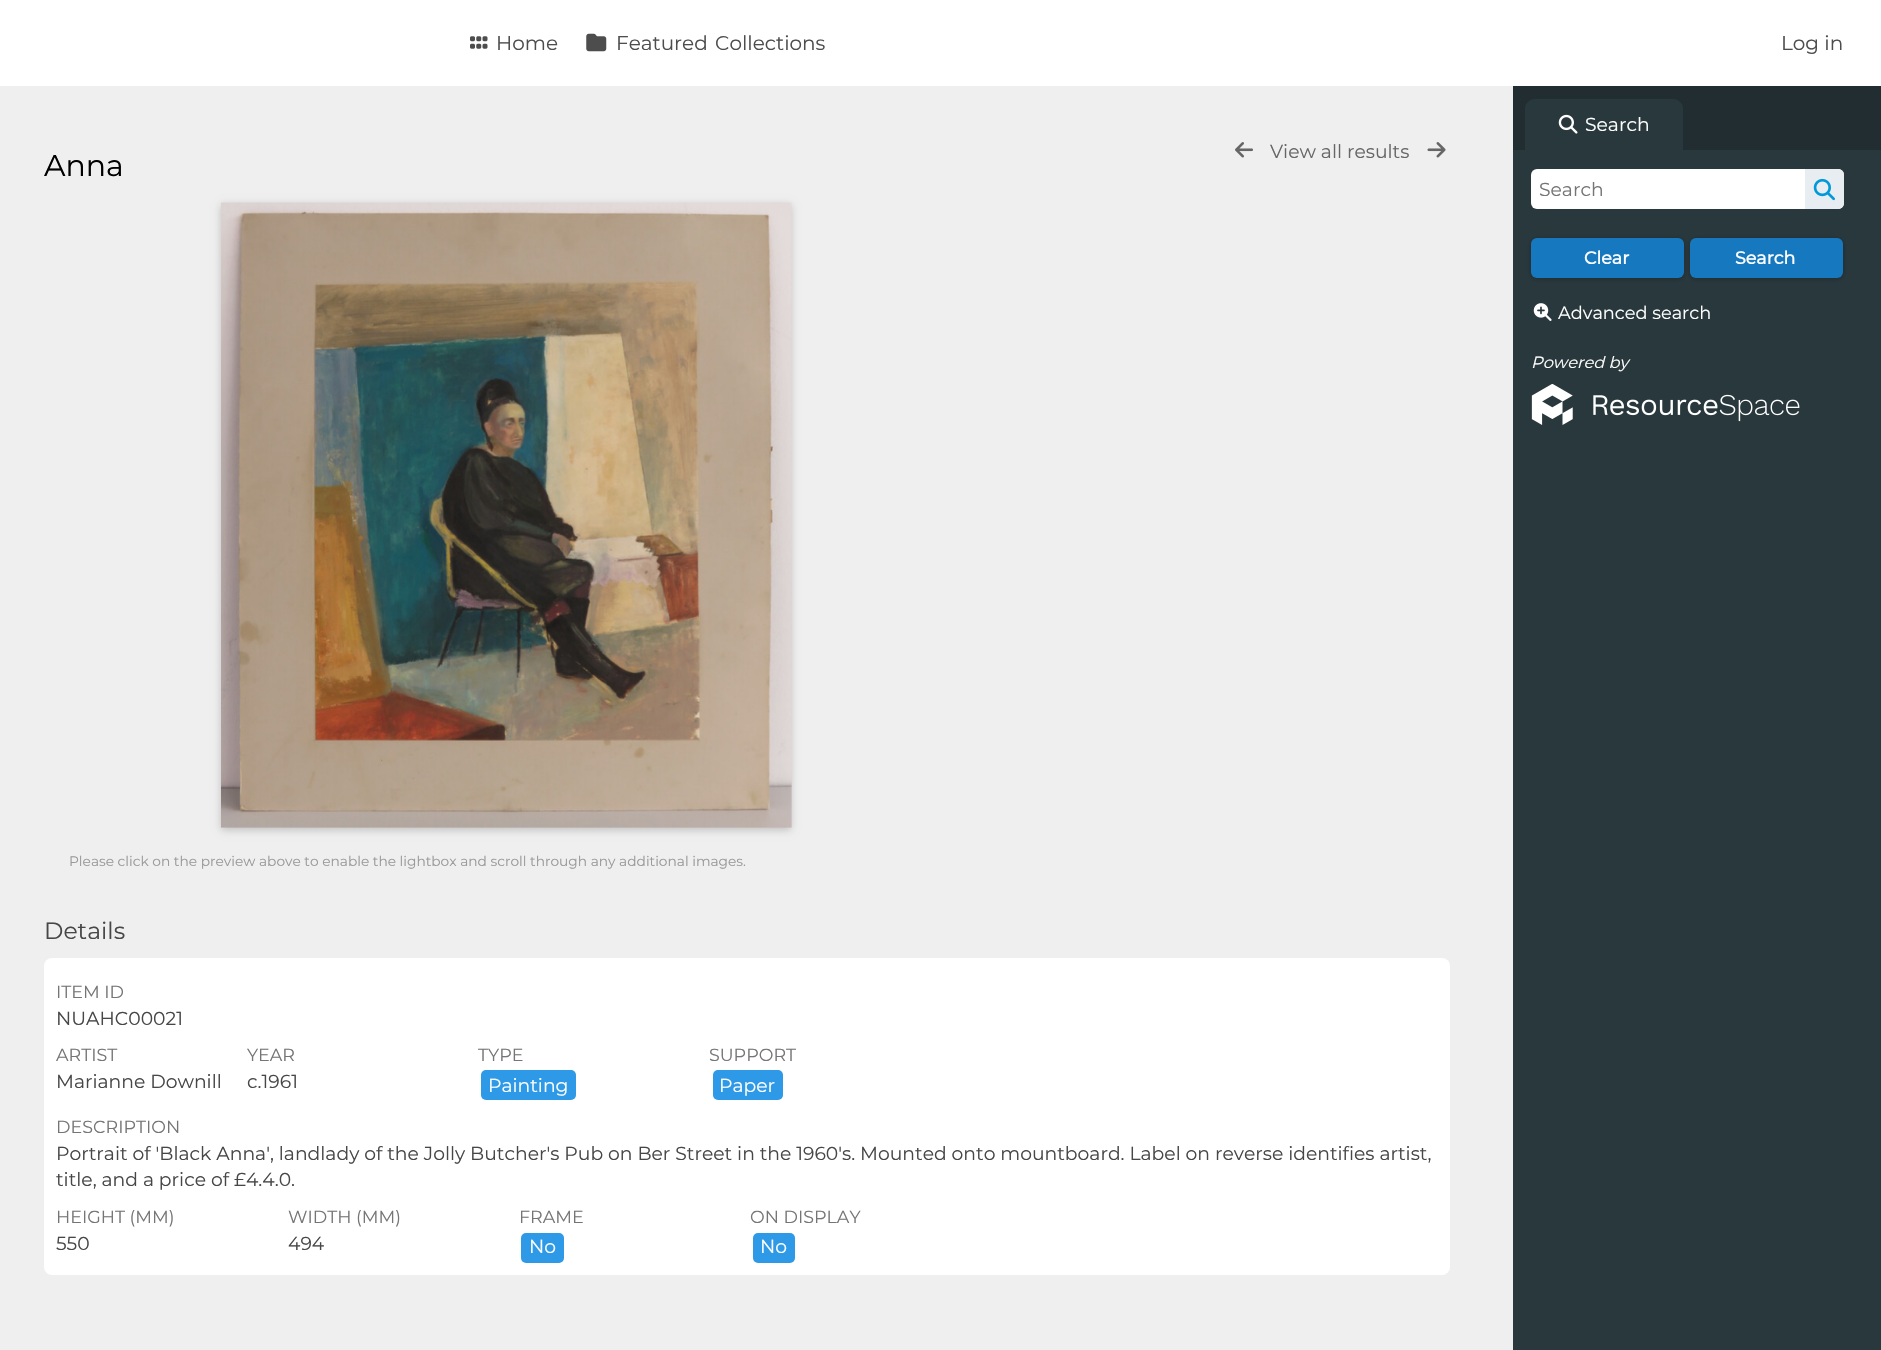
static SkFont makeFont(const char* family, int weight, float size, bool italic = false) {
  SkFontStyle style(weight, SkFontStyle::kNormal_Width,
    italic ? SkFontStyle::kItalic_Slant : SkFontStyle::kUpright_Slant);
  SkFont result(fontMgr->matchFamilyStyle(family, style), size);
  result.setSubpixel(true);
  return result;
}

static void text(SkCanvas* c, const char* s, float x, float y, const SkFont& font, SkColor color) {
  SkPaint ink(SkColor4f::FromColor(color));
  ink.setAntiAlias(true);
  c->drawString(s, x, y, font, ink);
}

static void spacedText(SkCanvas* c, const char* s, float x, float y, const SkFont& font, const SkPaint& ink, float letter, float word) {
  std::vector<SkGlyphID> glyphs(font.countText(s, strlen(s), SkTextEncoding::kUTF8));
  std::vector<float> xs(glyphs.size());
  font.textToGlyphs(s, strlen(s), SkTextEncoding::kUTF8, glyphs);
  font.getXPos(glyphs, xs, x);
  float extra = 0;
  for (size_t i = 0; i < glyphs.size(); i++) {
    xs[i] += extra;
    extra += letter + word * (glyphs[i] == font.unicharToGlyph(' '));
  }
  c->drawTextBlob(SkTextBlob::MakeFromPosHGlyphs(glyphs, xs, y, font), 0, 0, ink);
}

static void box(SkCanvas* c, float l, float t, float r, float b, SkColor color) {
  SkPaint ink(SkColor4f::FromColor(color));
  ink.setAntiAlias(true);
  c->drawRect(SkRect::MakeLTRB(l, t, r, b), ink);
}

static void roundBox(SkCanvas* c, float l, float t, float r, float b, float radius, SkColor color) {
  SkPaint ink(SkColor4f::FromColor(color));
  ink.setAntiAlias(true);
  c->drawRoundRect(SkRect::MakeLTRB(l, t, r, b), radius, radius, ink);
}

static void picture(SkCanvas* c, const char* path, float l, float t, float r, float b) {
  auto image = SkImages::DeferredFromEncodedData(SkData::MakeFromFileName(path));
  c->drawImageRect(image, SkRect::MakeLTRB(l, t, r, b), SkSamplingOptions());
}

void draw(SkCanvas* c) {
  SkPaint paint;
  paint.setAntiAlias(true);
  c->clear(0xffefefef);
  box(c, 0, 0, 1881, 86, 0xffffffff);
  picture(c, "img_01.png", 470, 36, 488, 49);
  SkFont face1 = makeFont("Montserrat", 400, 20);
  text(c, "Home", 496, 50, face1, 0xff4d4d4d);
  picture(c, "img_02.png", 586, 33, 607, 52);
  paint.setColor(0xff4d4d4d);
  spacedText(c, "Featured Collections", 616, 50, face1, paint, 0, 2);
  text(c, "Log in", 1781, 50, face1, 0xff4d4d4d);
  picture(c, "img_03.png", 1235, 142, 1253, 158);
  SkFont face2 = makeFont("Montserrat", 400, 18.75f);
  text(c, "View all results", 1270, 158, face2, 0xff666666);
  picture(c, "img_04.png", 1427, 142, 1446, 158);
  SkFont face3 = makeFont("Montserrat", 400, 30);
  text(c, "Anna", 44, 176, face3, 0xff000000);
  paint.setColor(0x33000000);
  paint.setMaskFilter(SkMaskFilter::MakeBlur(kNormal_SkBlurStyle, 4));
  c->drawRect(SkRect::MakeLTRB(221, 205, 791, 830), paint);
  paint.setMaskFilter(nullptr);
  picture(c, "img_05.png", 221, 202, 792, 828);
  SkFont face4 = makeFont("Montserrat", 400, 13.75f);
  text(c, "Please click on the preview above to enable the lightbox and scroll through any additional images.", 69, 866, face4, 0xff999999);
  SkFont face5 = makeFont("Montserrat", 400, 23.5f);
  text(c, "Details", 44, 939, face5, 0xff474747);
  roundBox(c, 44, 958, 1450, 1275, 8, 0xffffffff);
  SkFont face6 = makeFont("Montserrat", 400, 17.5f);
  text(c, "ITEM ID", 56, 998, face6, 0xff757575);
  text(c, "NUAHC00021", 56, 1025, face2, 0xff474747);
  text(c, "ARTIST", 56, 1061, face6, 0xff757575);
  text(c, "Marianne Downill", 56, 1088, face2, 0xff474747);
  text(c, "YEAR", 247, 1061, face6, 0xff757575);
  text(c, "c.1961", 247, 1088, face2, 0xff474747);
  text(c, "TYPE", 478, 1061, face6, 0xff757575);
  roundBox(c, 481, 1070, 576, 1100, 5, 0xff2e99e6);
  text(c, "Painting", 488, 1092, face2, 0xffffffff);
  text(c, "SUPPORT", 709, 1061, face6, 0xff757575);
  roundBox(c, 713, 1070, 783, 1100, 5, 0xff2e99e6);
  text(c, "Paper", 719, 1092, face2, 0xffffffff);
  text(c, "DESCRIPTION", 56, 1133, face6, 0xff757575);
  text(c, "Portrait of 'Black Anna', landlady of the Jolly Butcher's Pub on Ber Street in the 1960's. Mounted onto mountboard. Label on reverse identifies artist,", 56, 1160, face2, 0xff474747);
  text(c, "title, and a price of £4.4.0.", 56, 1186, face2, 0xff474747);
  text(c, "HEIGHT (MM)", 56, 1223, face6, 0xff757575);
  text(c, "550", 56, 1250, face2, 0xff474747);
  text(c, "WIDTH (MM)", 288, 1223, face6, 0xff757575);
  text(c, "494", 288, 1250, face2, 0xff474747);
  text(c, "FRAME", 519, 1223, face6, 0xff757575);
  roundBox(c, 521, 1233, 564, 1263, 5, 0xff2e99e6);
  text(c, "No", 529, 1253, face2, 0xffffffff);
  text(c, "ON DISPLAY", 750, 1223, face6, 0xff757575);
  roundBox(c, 753, 1233, 795, 1263, 5, 0xff2e99e6);
  text(c, "No", 760, 1253, face2, 0xffffffff);
  box(c, 1513, 150, 1881, 1350, 0xff29383d);
  box(c, 1513, 86, 1881, 150, 0xff212d31);
  paint.setColor(0xff29383d);
  c->drawPath(SkPathBuilder().moveTo(1535, 99).lineTo(1673, 99).cubicTo(1678.5f, 99, 1683, 103.5f, 1683, 109).lineTo(1683, 150).lineTo(1525, 150).lineTo(1525, 109).cubicTo(1525, 103.5f, 1529.5f, 99, 1535, 99).close().detach(), paint);
  picture(c, "img_06.png", 1558, 114, 1578, 134);
  text(c, "Search", 1585, 131, face2, 0xffffffff);
  roundBox(c, 1531, 169, 1844, 209, 6, 0xffffffff);
  text(c, "Search", 1539, 196, face2, 0xff757575);
  paint.setColor(0xffe8edf1);
  c->drawPath(SkPathBuilder().moveTo(1805, 169).lineTo(1838, 169).cubicTo(1841.5f, 169, 1844, 171.5f, 1844, 175).lineTo(1844, 203).cubicTo(1844, 206.5f, 1841.5f, 209, 1838, 209).lineTo(1805, 209).close().detach(), paint);
  picture(c, "img_07.png", 1813, 178, 1835, 201);
  paint.setColor(0x40000000);
  paint.setMaskFilter(SkMaskFilter::MakeBlur(kNormal_SkBlurStyle, 2));
  c->drawRoundRect(SkRect::MakeLTRB(1531, 239, 1684, 279), 6, 6, paint);
  paint.setMaskFilter(nullptr);
  roundBox(c, 1531, 238, 1684, 278, 6, 0xff1679c0);
  SkFont face7 = makeFont("Montserrat", 700, 17.5f);
  text(c, "Clear", 1584, 264, face7, 0xffffffff);
  paint.setMaskFilter(SkMaskFilter::MakeBlur(kNormal_SkBlurStyle, 2));
  c->drawRoundRect(SkRect::MakeLTRB(1690, 239, 1843, 279), 6, 6, paint);
  paint.setMaskFilter(nullptr);
  roundBox(c, 1690, 238, 1843, 278, 6, 0xff1679c0);
  text(c, "Search", 1735, 264, face7, 0xffffffff);
  picture(c, "img_08.png", 1533, 303, 1552, 321);
  SkFont face8 = makeFont("Montserrat", 400, 17.75f);
  text(c, "Advanced search", 1558, 319, face8, 0xffffffff);
  SkFont face9 = makeFont("Montserrat", 400, 16.25f, true);
  text(c, "Powered by", 1531, 368, face9, 0xffffffff);
  picture(c, "img_09.png", 1531, 384, 1800, 425);
}
